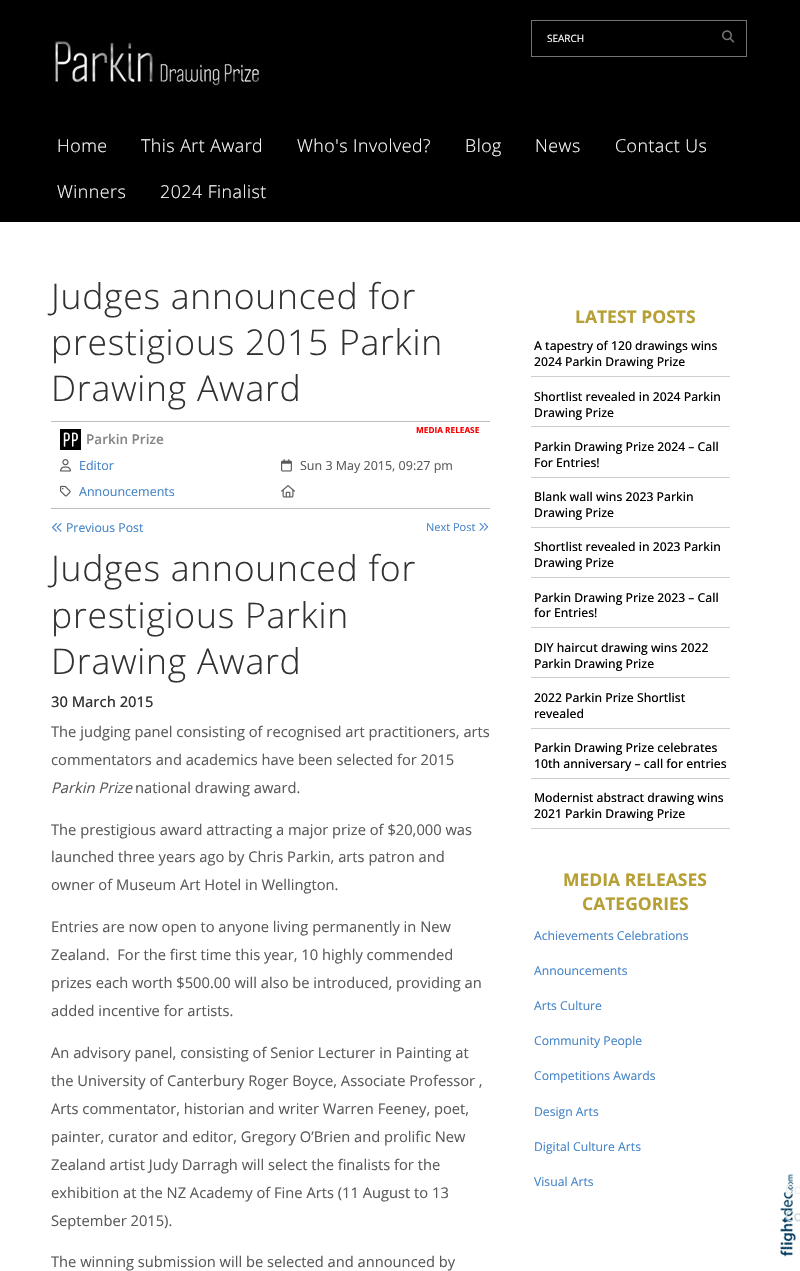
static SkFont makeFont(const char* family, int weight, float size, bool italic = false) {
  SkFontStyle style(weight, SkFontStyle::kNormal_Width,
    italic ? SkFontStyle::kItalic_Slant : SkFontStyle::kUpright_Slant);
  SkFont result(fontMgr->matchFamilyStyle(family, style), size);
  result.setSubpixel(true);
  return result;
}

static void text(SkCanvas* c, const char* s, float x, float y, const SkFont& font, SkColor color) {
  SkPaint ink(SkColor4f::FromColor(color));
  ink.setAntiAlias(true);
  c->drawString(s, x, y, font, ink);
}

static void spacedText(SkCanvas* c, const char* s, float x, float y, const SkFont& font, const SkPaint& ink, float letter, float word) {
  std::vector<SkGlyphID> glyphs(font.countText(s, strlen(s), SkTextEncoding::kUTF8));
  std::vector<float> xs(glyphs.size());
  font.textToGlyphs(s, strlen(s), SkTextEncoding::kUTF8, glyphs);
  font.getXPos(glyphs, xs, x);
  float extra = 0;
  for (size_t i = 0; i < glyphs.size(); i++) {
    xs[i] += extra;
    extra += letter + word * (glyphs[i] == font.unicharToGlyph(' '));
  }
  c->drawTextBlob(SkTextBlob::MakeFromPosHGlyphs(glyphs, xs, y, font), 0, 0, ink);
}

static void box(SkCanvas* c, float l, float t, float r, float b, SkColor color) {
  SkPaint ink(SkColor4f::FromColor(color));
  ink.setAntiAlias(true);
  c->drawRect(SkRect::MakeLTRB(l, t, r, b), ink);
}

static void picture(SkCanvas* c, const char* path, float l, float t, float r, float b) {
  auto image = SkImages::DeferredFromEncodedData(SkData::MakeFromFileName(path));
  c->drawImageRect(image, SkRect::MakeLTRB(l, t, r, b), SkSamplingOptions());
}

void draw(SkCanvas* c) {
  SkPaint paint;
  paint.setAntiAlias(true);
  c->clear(0xff000000);
  paint.setStyle(SkPaint::kStroke_Style);
  paint.setStrokeWidth(1);
  paint.setColor(0xff757474);
  c->drawRect(SkRect::MakeLTRB(531.5f, 20.5f, 746.5f, 56.5f), paint);
  SkFont face1 = makeFont("Open Sans", 400, 10);
  text(c, "SEARCH", 547, 42, face1, 0xffffffff);
  picture(c, "img_01.png", 722, 30, 735, 43);
  picture(c, "img_02.png", 52, 41, 259, 88);
  SkFont face2 = makeFont("Open Sans", 300, 17.75f);
  paint.setStyle(SkPaint::kFill_Style);
  paint.setColor(0xffffffff);
  spacedText(c, "Home", 57, 152, face2, paint, 0.5f, 0);
  spacedText(c, "This Art Award", 141, 152, face2, paint, 0.5f, 0);
  spacedText(c, "Who's Involved?", 297, 152, face2, paint, 0.5f, 0);
  spacedText(c, "Blog", 465, 152, face2, paint, 0.5f, 0);
  spacedText(c, "News", 535, 152, face2, paint, 0.5f, 0);
  spacedText(c, "Contact Us", 615, 152, face2, paint, 0.5f, 0);
  spacedText(c, "Winners", 57, 198, face2, paint, 0.5f, 0);
  spacedText(c, "2024 Finalist", 160, 198, face2, paint, 0.5f, 0);
  box(c, 0, 222, 800, 1271, 0xffffffff);
  SkFont face3 = makeFont("Open Sans", 300, 35.5f);
  paint.setColor(0xff313132);
  spacedText(c, "Judges announced for", 51, 309, face3, paint, 0.75f, 0);
  spacedText(c, "prestigious 2015 Parkin", 51, 355, face3, paint, 0.75f, 0);
  spacedText(c, "Drawing Award", 51, 401, face3, paint, 0.75f, 0);
  box(c, 51, 421, 490, 422, 0xffbebebe);
  box(c, 51, 508, 490, 509, 0xffbebebe);
  SkFont face4 = makeFont("Open Sans", 700, 8.25f);
  text(c, "MEDIA RELEASE", 416, 433, face4, 0xffff0000);
  picture(c, "img_03.png", 60, 429, 81, 450);
  SkFont face5 = makeFont("Open Sans", 600, 13.5f);
  text(c, "Parkin Prize", 86, 444, face5, 0xff878785);
  picture(c, "img_04.png", 60, 459, 71, 472);
  SkFont face6 = makeFont("Open Sans", 400, 12.5f);
  text(c, "Editor", 79, 470, face6, 0xff4383c7);
  picture(c, "img_05.png", 281, 459, 292, 472);
  text(c, "Sun 3 May 2015, 09:27 pm", 300, 470, face6, 0xff5b5a5a);
  picture(c, "img_06.png", 60, 485, 71, 497);
  text(c, "Announcements", 79, 496, face6, 0xff4383c7);
  picture(c, "img_07.png", 281, 485, 295, 498);
  picture(c, "img_08.png", 52, 523, 62, 532);
  SkFont face7 = makeFont("Open Sans", 400, 12.25f);
  text(c, "Previous Post", 66, 532, face7, 0xff4383c7);
  SkFont face8 = makeFont("Open Sans", 400, 11);
  text(c, "Next Post", 426, 531, face8, 0xff4383c7);
  picture(c, "img_09.png", 479, 523, 489, 531);
  spacedText(c, "Judges announced for", 51, 581, face3, paint, 0.75f, 0);
  spacedText(c, "prestigious Parkin", 51, 628, face3, paint, 0.75f, 0);
  spacedText(c, "Drawing Award", 51, 674, face3, paint, 0.75f, 0);
  SkFont face9 = makeFont("Open Sans", 500, 14.7f);
  text(c, "30 March 2015", 51, 707, face9, 0xff313132);
  SkFont face10 = makeFont("Open Sans", 400, 14.7f);
  text(c, "The judging panel consisting of recognised art practitioners, arts", 51, 737, face10, 0xff5b5a5a);
  text(c, "commentators and academics have been selected for 2015", 51, 765, face10, 0xff5b5a5a);
  SkFont face11 = makeFont("Open Sans", 400, 14.7f, true);
  text(c, "Parkin Prize", 51, 793, face11, 0xff5b5a5a);
  text(c, "national drawing award.", 135, 793, face10, 0xff5b5a5a);
  text(c, "The prestigious award attracting a major prize of $20,000 was", 51, 835, face10, 0xff5b5a5a);
  text(c, "launched three years ago by Chris Parkin, arts patron and", 51, 862, face10, 0xff5b5a5a);
  text(c, "owner of Museum Art Hotel in Wellington.", 51, 890, face10, 0xff5b5a5a);
  text(c, "Entries are now open to anyone living permanently in New", 51, 932, face10, 0xff5b5a5a);
  text(c, "Zealand.  For the first time this year, 10 highly commended", 51, 960, face10, 0xff5b5a5a);
  text(c, "prizes each worth $500.00 will also be introduced, providing an", 51, 988, face10, 0xff5b5a5a);
  text(c, "added incentive for artists.", 51, 1016, face10, 0xff5b5a5a);
  text(c, "An advisory panel, consisting of Senior Lecturer in Painting at", 51, 1058, face10, 0xff5b5a5a);
  text(c, "the University of Canterbury Roger Boyce, Associate Professor ,", 51, 1086, face10, 0xff5b5a5a);
  text(c, "Arts commentator, historian and writer Warren Feeney, poet,", 51, 1114, face10, 0xff5b5a5a);
  text(c, "painter, curator and editor, Gregory O’Brien and prolific New", 51, 1142, face10, 0xff5b5a5a);
  text(c, "Zealand artist Judy Darragh will select the finalists for the", 51, 1170, face10, 0xff5b5a5a);
  text(c, "exhibition at the NZ Academy of Fine Arts (11 August to 13", 51, 1198, face10, 0xff5b5a5a);
  text(c, "September 2015).", 51, 1226, face10, 0xff5b5a5a);
  text(c, "The winning submission will be selected and announced by", 51, 1267, face10, 0xff5b5a5a);
  SkFont face12 = makeFont("Open Sans", 700, 17.5f);
  text(c, "LATEST POSTS", 575, 323, face12, 0xffb6a035);
  box(c, 531, 376, 730, 377, 0xffd3cdcd);
  SkFont face13 = makeFont("Open Sans", 500, 12.2f);
  text(c, "A tapestry of 120 drawings wins", 534, 350, face13, 0xff000000);
  text(c, "2024 Parkin Drawing Prize", 534, 366, face13, 0xff000000);
  box(c, 531, 426, 730, 427, 0xffd3cdcd);
  text(c, "Shortlist revealed in 2024 Parkin", 534, 401, face13, 0xff000000);
  text(c, "Drawing Prize", 534, 417, face13, 0xff000000);
  box(c, 531, 477, 730, 478, 0xffd3cdcd);
  text(c, "Parkin Drawing Prize 2024 – Call", 534, 451, face13, 0xff000000);
  text(c, "For Entries!", 534, 467, face13, 0xff000000);
  box(c, 531, 527, 730, 528, 0xffd3cdcd);
  text(c, "Blank wall wins 2023 Parkin", 534, 501, face13, 0xff000000);
  text(c, "Drawing Prize", 534, 517, face13, 0xff000000);
  box(c, 531, 577, 730, 578, 0xffd3cdcd);
  text(c, "Shortlist revealed in 2023 Parkin", 534, 551, face13, 0xff000000);
  text(c, "Drawing Prize", 534, 567, face13, 0xff000000);
  box(c, 531, 627, 730, 628, 0xffd3cdcd);
  text(c, "Parkin Drawing Prize 2023 – Call", 534, 602, face13, 0xff000000);
  text(c, "for Entries!", 534, 617, face13, 0xff000000);
  box(c, 531, 677, 730, 678, 0xffd3cdcd);
  text(c, "DIY haircut drawing wins 2022", 534, 652, face13, 0xff000000);
  text(c, "Parkin Drawing Prize", 534, 668, face13, 0xff000000);
  box(c, 531, 728, 730, 729, 0xffd3cdcd);
  text(c, "2022 Parkin Prize Shortlist", 534, 702, face13, 0xff000000);
  text(c, "revealed", 534, 718, face13, 0xff000000);
  box(c, 531, 778, 730, 779, 0xffd3cdcd);
  text(c, "Parkin Drawing Prize celebrates", 534, 752, face13, 0xff000000);
  text(c, "10th anniversary – call for entries", 534, 768, face13, 0xff000000);
  box(c, 531, 828, 730, 829, 0xffd3cdcd);
  text(c, "Modernist abstract drawing wins", 534, 802, face13, 0xff000000);
  text(c, "2021 Parkin Drawing Prize", 534, 818, face13, 0xff000000);
  text(c, "MEDIA RELEASES", 563, 886, face12, 0xffb6a035);
  text(c, "CATEGORIES", 582, 910, face12, 0xffb6a035);
  SkFont face14 = makeFont("Open Sans", 400, 12.2f);
  text(c, "Achievements Celebrations", 534, 940, face14, 0xff4383c7);
  text(c, "Announcements", 534, 975, face14, 0xff4383c7);
  text(c, "Arts Culture", 534, 1010, face14, 0xff4383c7);
  text(c, "Community People", 534, 1045, face14, 0xff4383c7);
  text(c, "Competitions Awards", 534, 1080, face14, 0xff4383c7);
  text(c, "Design Arts", 534, 1116, face14, 0xff4383c7);
  text(c, "Digital Culture Arts", 534, 1151, face14, 0xff4383c7);
  text(c, "Visual Arts", 534, 1186, face14, 0xff4383c7);
  picture(c, "img_10.png", 780, 1174, 796, 1257);
  SkFont face15 = makeFont("Open Sans", 400, 14);
  text(c, "Co", 785, 1194, face15, 0xffeaeff2);
  text(c, "Co", 785, 1221, face15, 0xffc5d2da);
}
